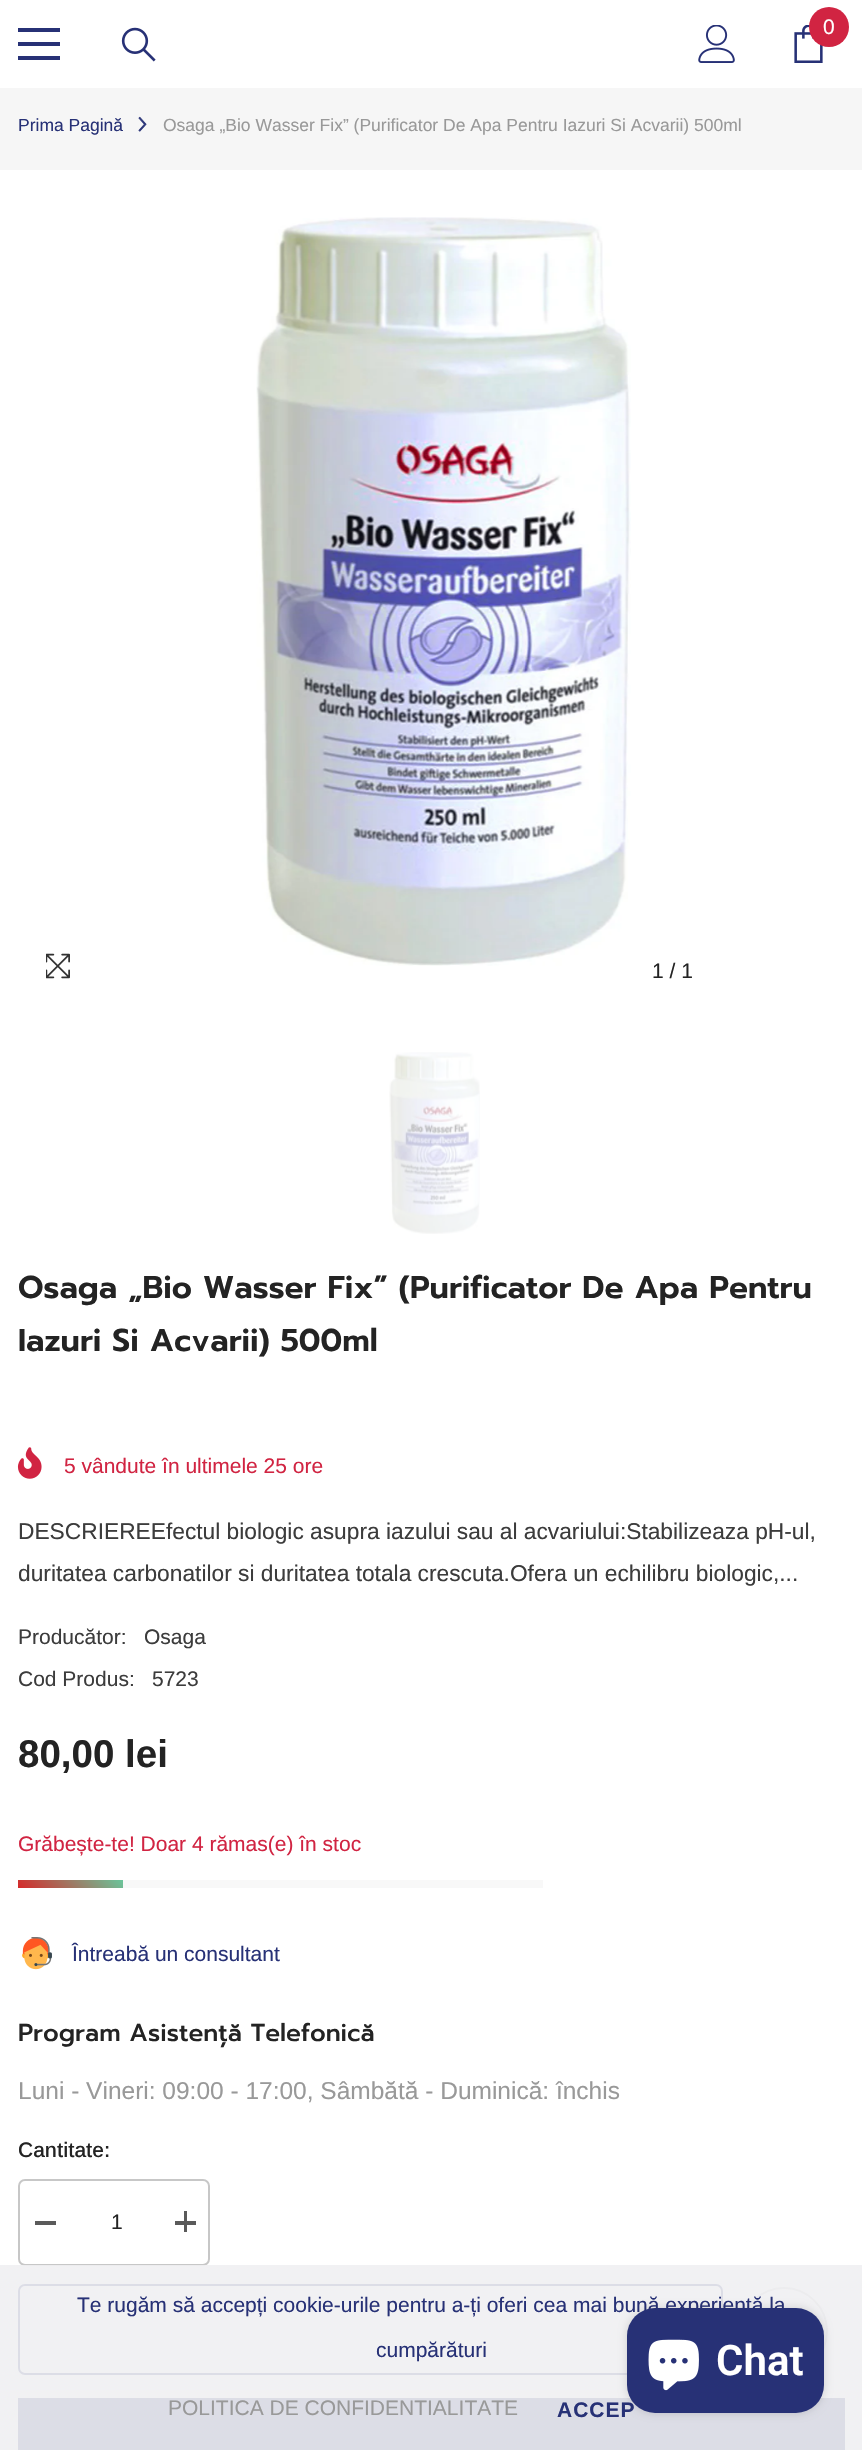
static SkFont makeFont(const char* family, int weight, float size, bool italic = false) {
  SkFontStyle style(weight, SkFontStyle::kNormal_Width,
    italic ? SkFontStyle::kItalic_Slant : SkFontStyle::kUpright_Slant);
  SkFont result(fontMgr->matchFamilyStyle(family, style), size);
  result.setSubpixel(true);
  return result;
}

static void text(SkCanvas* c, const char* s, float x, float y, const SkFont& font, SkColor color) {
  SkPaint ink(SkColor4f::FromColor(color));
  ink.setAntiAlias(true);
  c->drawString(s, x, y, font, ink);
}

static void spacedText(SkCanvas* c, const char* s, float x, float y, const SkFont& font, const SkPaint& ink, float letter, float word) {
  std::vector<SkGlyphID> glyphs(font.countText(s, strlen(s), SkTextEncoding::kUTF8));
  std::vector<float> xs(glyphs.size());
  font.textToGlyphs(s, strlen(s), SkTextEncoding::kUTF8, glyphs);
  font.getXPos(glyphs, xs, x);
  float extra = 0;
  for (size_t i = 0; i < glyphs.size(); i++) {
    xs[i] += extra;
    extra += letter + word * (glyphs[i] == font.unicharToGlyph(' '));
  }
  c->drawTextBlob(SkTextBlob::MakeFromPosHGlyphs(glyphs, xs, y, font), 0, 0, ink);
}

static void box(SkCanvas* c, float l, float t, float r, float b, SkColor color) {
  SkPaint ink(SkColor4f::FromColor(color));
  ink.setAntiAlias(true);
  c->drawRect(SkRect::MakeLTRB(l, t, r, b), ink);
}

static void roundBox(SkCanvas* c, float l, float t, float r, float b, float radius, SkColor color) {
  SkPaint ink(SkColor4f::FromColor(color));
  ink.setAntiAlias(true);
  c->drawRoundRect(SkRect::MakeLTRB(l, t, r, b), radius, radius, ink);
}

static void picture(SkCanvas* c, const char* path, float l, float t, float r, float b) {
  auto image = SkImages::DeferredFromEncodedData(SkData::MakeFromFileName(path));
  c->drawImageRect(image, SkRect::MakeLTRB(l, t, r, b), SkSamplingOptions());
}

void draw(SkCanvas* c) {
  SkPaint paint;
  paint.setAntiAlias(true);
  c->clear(0xffffffff);
  box(c, 18, 42, 60, 46, 0xff273176);
  box(c, 18, 28, 60, 32, 0xff273176);
  box(c, 18, 56, 60, 60, 0xff273176);
  picture(c, "img_01.png", 121, 27, 156, 62);
  picture(c, "img_02.png", 698, 25, 735, 63);
  picture(c, "img_03.png", 794, 25, 823, 63);
  paint.setColor(0xffd12442);
  c->drawCircle(829, 27, 20, paint);
  SkFont face1 = makeFont("Arimo", 400, 21);
  text(c, "0", 823, 34, face1, 0xffffffff);
  box(c, 0, 88, 862, 170, 0xfff6f6f6);
  SkFont face2 = makeFont("Arimo", 400, 17.5f);
  text(c, "Prima Pagină", 18, 131, face2, 0xff273176);
  picture(c, "img_04.png", 138, 116, 147, 132);
  text(c, "Osaga „Bio Wasser Fix” (Purificator De Apa Pentru Iazuri Si Acvarii) 500ml", 163, 131, face2, 0xff999999);
  picture(c, "img_05.png", 46, 953, 70, 979);
  picture(c, "img_06.png", 256, 217, 631, 966);
  text(c, "1 / 1", 652, 978, face1, 0xff232323);
  picture(c, "img_07.png", 389, 1052, 480, 1234);
  SkFont face3 = makeFont("Prompt", 600, 31.5f);
  text(c, "Osaga „Bio Wasser Fix” (Purificator De Apa Pentru", 18, 1298, face3, 0xff232323);
  text(c, "Iazuri Si Acvarii) 500ml", 18, 1351, face3, 0xff232323);
  picture(c, "img_08.png", 17, 1447, 42, 1479);
  text(c, "5 vândute în ultimele 25 ore", 64, 1473, face1, 0xffd12442);
  SkFont face4 = makeFont("Arimo", 400, 22.75f);
  text(c, "DESCRIEREEfectul biologic asupra iazului sau al acvariului:Stabilizeaza pH-ul,", 18, 1539, face4, 0xff3c3c3c);
  text(c, "duritatea carbonatilor si duritatea totala crescuta.Ofera un echilibru biologic,...", 18, 1581, face4, 0xff3c3c3c);
  text(c, "Producător:", 18, 1644, face1, 0xff3c3c3c);
  text(c, "Osaga", 144, 1644, face1, 0xff3c3c3c);
  text(c, "Cod Produs:", 18, 1686, face1, 0xff3c3c3c);
  text(c, "5723", 152, 1686, face1, 0xff3c3c3c);
  SkFont face5 = makeFont("Arimo", 700, 38.5f);
  text(c, "80,00 lei", 18, 1767, face5, 0xff232323);
  text(c, "Grăbește-te! Doar 4 rămas(e) în stoc", 18, 1851, face1, 0xffd12442);
  box(c, 123, 1880, 543, 1888, 0xfff8f8f8);
  {
    const SkColor colors[] = {0xffd62828, 0xff69c69c};
    const float stops[] = {0, 1};
    const SkPoint ends[] = {{42, 1912}, {98, 1855}};
    paint.setShader(SkGradientShader::MakeLinear(ends, colors, stops, 2, SkTileMode::kClamp));
    paint.setAlpha(255);
  }
  c->drawRect(SkRect::MakeLTRB(18, 1880, 123, 1888), paint);
  picture(c, "img_09.png", 22, 1937, 52, 1970);
  text(c, "Întreabă un consultant", 72, 1961, face1, 0xff273176);
  SkFont face6 = makeFont("Prompt", 500, 24.5f);
  text(c, "Program Asistență Telefonică", 18, 2041, face6, 0xff232323);
  SkFont face7 = makeFont("Arimo", 400, 24.5f);
  text(c, "Luni - Vineri: 09:00 - 17:00, Sâmbătă - Duminică: închis", 18, 2099, face7, 0xff999999);
  SkFont face8 = makeFont("Arimo", 500, 21);
  text(c, "Cantitate:", 18, 2157, face8, 0xff232323);
  paint.setStyle(SkPaint::kStroke_Style);
  paint.setStrokeWidth(2);
  paint.setShader(nullptr);
  paint.setColor(0xffc7c7c7);
  c->drawRoundRect(SkRect::MakeLTRB(19, 2180, 209, 2265), 6, 6, paint);
  box(c, 35, 2221, 56, 2225, 0xff5a5a5a);
  text(c, "1", 111, 2229, face1, 0xff232323);
  box(c, 175, 2221, 196, 2225, 0xff5a5a5a);
  box(c, 184, 2211, 187, 2232, 0xff5a5a5a);
  paint.setColor(0xff273176);
  c->drawRoundRect(SkRect::MakeLTRB(19, 2285, 722, 2374), 6, 6, paint);
  paint.setColor(0xffc7c7c7);
  c->drawCircle(784, 2331, 43, paint);
  box(c, 18, 2398, 845, 2450, 0xff273176);
  box(c, 0, 2265, 862, 2450, 0xe6eff0f2);
  text(c, "Te rugăm să accepți cookie-urile pentru a-ți oferi cea mai bună experiență la", 77, 2312, face1, 0xff273176);
  text(c, "cumpărături", 376, 2357, face1, 0xff273176);
  text(c, "POLITICA DE CONFIDENTIALITATE", 168, 2415, face1, 0xff999999);
  SkFont face9 = makeFont("Liberation Sans", 700, 21);
  paint.setStyle(SkPaint::kFill_Style);
  paint.setColor(0xff273176);
  spacedText(c, "ACCEP", 557, 2417, face9, paint, 1, 0);
  paint.setColor(0x26000000);
  paint.setMaskFilter(SkMaskFilter::MakeBlur(kNormal_SkBlurStyle, 4.5f));
  c->drawRoundRect(SkRect::MakeLTRB(627, 2308, 824, 2413), 28, 28, paint);
  paint.setMaskFilter(nullptr);
  roundBox(c, 627, 2308, 824, 2413, 28, 0xff273176);
  picture(c, "img_10.png", 648, 2339, 699, 2391);
  SkFont face10 = makeFont("Roboto", 600, 42);
  text(c, "Chat", 716, 2375, face10, 0xffffffff);
}
